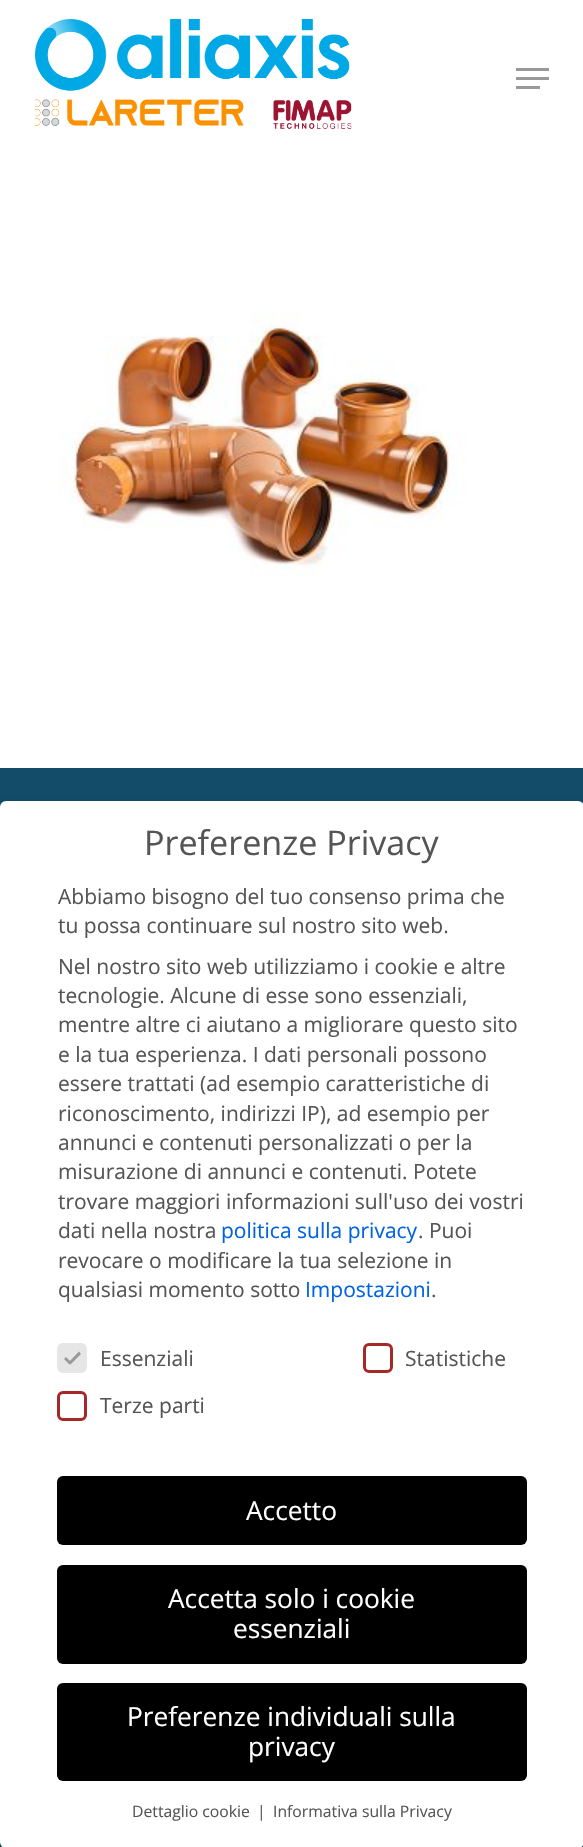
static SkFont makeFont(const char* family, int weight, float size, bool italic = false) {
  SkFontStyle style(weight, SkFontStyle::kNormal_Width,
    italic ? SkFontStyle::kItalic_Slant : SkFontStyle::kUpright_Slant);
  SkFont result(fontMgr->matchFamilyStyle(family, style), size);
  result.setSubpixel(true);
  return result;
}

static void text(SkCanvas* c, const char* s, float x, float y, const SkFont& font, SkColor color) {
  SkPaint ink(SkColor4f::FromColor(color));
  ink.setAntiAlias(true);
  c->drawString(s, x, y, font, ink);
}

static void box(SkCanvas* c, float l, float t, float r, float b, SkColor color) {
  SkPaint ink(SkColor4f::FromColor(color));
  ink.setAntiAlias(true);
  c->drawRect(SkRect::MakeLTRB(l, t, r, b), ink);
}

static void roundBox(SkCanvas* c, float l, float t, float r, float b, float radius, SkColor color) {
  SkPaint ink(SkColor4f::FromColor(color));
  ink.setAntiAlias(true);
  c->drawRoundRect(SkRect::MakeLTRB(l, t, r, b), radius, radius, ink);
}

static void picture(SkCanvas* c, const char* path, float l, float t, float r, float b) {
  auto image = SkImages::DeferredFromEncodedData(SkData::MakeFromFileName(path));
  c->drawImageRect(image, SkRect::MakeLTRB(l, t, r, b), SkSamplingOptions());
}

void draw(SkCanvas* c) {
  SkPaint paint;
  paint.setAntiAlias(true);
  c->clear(0xffffffff);
  picture(c, "img_01.png", 35, 19, 352, 129);
  box(c, 516, 68, 549, 71, 0xff999999);
  box(c, 516, 86, 540, 89, 0xff999999);
  box(c, 516, 77, 549, 80, 0xff999999);
  picture(c, "img_02.png", 59, 312, 466, 576);
  box(c, 0, 768, 583, 1847, 0xff134c68);
  paint.setColor(0x33000000);
  paint.setMaskFilter(SkMaskFilter::MakeBlur(kNormal_SkBlurStyle, 6));
  c->drawRoundRect(SkRect::MakeLTRB(0, 807, 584, 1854), 6, 6, paint);
  paint.setMaskFilter(nullptr);
  roundBox(c, 0, 801, 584, 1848, 6, 0xffffffff);
  SkFont face1 = makeFont("Open Sans", 400, 34.1f);
  text(c, "Preferenze Privacy", 144, 855, face1, 0xff555555);
  SkFont face2 = makeFont("Open Sans", 400, 21);
  text(c, "Abbiamo bisogno del tuo consenso prima che", 58, 904, face2, 0xff555555);
  text(c, "tu possa continuare sul nostro sito web.", 58, 933, face2, 0xff555555);
  text(c, "Nel nostro sito web utilizziamo i cookie e altre", 58, 974, face2, 0xff555555);
  text(c, "tecnologie. Alcune di esse sono essenziali,", 58, 1003, face2, 0xff555555);
  text(c, "mentre altre ci aiutano a migliorare questo sito", 58, 1032, face2, 0xff555555);
  text(c, "e la tua esperienza. I dati personali possono", 58, 1062, face2, 0xff555555);
  text(c, "essere trattati (ad esempio caratteristiche di", 58, 1091, face2, 0xff555555);
  text(c, "riconoscimento, indirizzi IP), ad esempio per", 58, 1121, face2, 0xff555555);
  text(c, "annunci e contenuti personalizzati o per la", 58, 1150, face2, 0xff555555);
  text(c, "misurazione di annunci e contenuti. Potete", 58, 1179, face2, 0xff555555);
  text(c, "trovare maggiori informazioni sull'uso dei vostri", 58, 1209, face2, 0xff555555);
  text(c, "dati nella nostra", 58, 1238, face2, 0xff555555);
  text(c, "politica sulla privacy", 221, 1238, face2, 0xff0063e3);
  text(c, ". Puoi", 418, 1238, face2, 0xff555555);
  text(c, "revocare o modificare la tua selezione in", 58, 1268, face2, 0xff555555);
  text(c, "qualsiasi momento sotto", 58, 1297, face2, 0xff555555);
  text(c, "Impostazioni", 305, 1297, face2, 0xff0063e3);
  text(c, ".", 431, 1297, face2, 0xff555555);
  paint.setColor(0xffe6e6e6);
  c->drawRoundRect(SkRect::MakeLTRB(58.5f, 1344.5f, 85.5f, 1371.5f), 4.5f, 4.5f, paint);
  paint.setStyle(SkPaint::kStroke_Style);
  paint.setStrokeWidth(3);
  c->drawRoundRect(SkRect::MakeLTRB(58.5f, 1344.5f, 85.5f, 1371.5f), 4.5f, 4.5f, paint);
  paint.setStyle(SkPaint::kFill_Style);
  paint.setColor(0xff999999);
  c->drawPath(SkPathBuilder().moveTo(79, 1351.5f).lineTo(81, 1354).lineTo(70.5f, 1364.5f).lineTo(68.5f, 1362.5f).close().detach(), paint);
  c->drawPath(SkPathBuilder().moveTo(66, 1357).lineTo(71.5f, 1362.5f).lineTo(69.5f, 1364.5f).lineTo(64, 1359).close().detach(), paint);
  text(c, "Essenziali", 100, 1366, face2, 0xff555555);
  paint.setStyle(SkPaint::kStroke_Style);
  paint.setColor(0xffa72828);
  c->drawRoundRect(SkRect::MakeLTRB(364.5f, 1344.5f, 391.5f, 1371.5f), 4.5f, 4.5f, paint);
  text(c, "Statistiche", 405, 1366, face2, 0xff555555);
  c->drawRoundRect(SkRect::MakeLTRB(58.5f, 1392.5f, 85.5f, 1419.5f), 4.5f, 4.5f, paint);
  text(c, "Terze parti", 100, 1413, face2, 0xff555555);
  roundBox(c, 57, 1476, 527, 1545, 6, 0xff000000);
  SkFont face3 = makeFont("Open Sans", 400, 26.25f);
  text(c, "Accetto", 246, 1520, face3, 0xffffffff);
  roundBox(c, 57, 1565, 527, 1664, 6, 0xff000000);
  text(c, "Accetta solo i cookie", 168, 1608, face3, 0xffffffff);
  text(c, "essenziali", 233, 1638, face3, 0xffffffff);
  roundBox(c, 57, 1683, 527, 1781, 6, 0xff000000);
  text(c, "Preferenze individuali sulla", 127, 1726, face3, 0xffffffff);
  text(c, "privacy", 248, 1756, face3, 0xffffffff);
  SkFont face4 = makeFont("Open Sans", 400, 15.75f);
  text(c, "Dettaglio cookie", 132, 1817, face4, 0xff555555);
  text(c, "|", 257, 1817, face4, 0xff555555);
  text(c, "Informativa sulla Privacy", 273, 1817, face4, 0xff555555);
}
